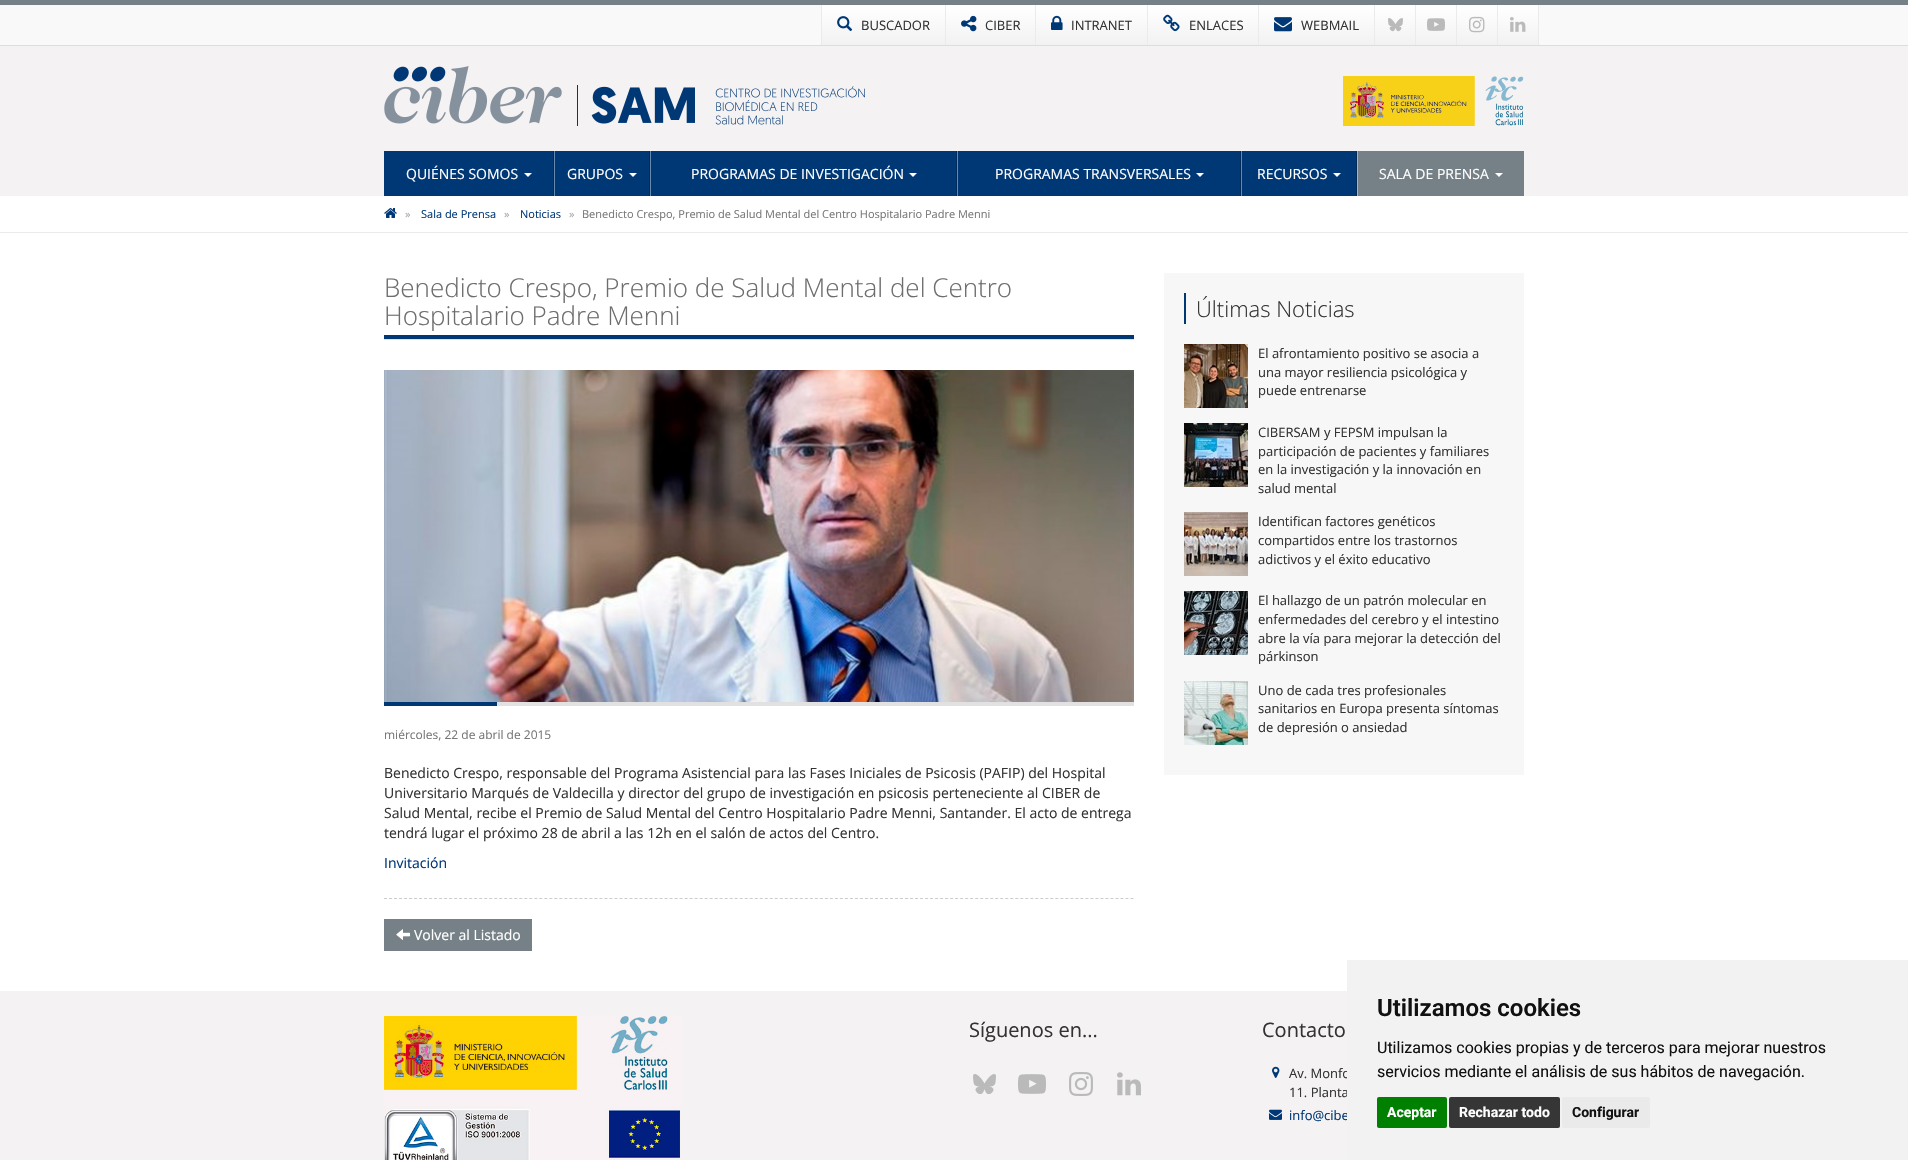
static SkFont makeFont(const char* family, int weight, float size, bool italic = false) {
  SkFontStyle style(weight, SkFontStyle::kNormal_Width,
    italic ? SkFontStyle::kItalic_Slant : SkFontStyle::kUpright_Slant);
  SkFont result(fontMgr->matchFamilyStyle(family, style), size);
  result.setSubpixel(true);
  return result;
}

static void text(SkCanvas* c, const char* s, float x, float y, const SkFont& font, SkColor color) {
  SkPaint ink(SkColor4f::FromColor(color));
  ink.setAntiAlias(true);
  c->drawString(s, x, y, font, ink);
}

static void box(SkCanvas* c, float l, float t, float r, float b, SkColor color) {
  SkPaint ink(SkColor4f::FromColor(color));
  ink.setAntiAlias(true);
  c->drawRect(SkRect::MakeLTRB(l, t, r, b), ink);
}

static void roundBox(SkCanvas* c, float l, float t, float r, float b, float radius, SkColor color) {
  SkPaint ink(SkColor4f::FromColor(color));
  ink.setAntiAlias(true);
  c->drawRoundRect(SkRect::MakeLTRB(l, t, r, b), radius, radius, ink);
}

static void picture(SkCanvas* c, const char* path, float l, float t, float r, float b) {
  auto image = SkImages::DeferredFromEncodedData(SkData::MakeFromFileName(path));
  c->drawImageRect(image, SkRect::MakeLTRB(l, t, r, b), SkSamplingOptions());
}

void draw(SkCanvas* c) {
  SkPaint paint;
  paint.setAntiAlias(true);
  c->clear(0xffffffff);
  box(c, 0, 5, 1908, 45, 0xfff9f9f9);
  box(c, 0, 0, 1908, 5, 0xff768187);
  box(c, 0, 45, 1908, 46, 0xffdddddd);
  {
    const SkColor colors[] = {0xffffffff, 0xfff2f2f2};
    const float stops[] = {0, 1};
    const SkPoint ends[] = {{884, 5}, {884, 45}};
    paint.setShader(SkGradientShader::MakeLinear(ends, colors, stops, 2, SkTileMode::kClamp));
    paint.setAlpha(255);
  }
  c->drawRect(SkRect::MakeLTRB(822, 5, 945, 45), paint);
  box(c, 945, 5, 946, 45, 0xffebebeb);
  box(c, 821, 5, 822, 45, 0xffebebeb);
  picture(c, "img_01.png", 837, 16, 853, 31);
  SkFont face1 = makeFont("Open Sans", 400, 13);
  text(c, "BUSCADOR", 861, 30, face1, 0xff333333);
  {
    const SkColor colors[] = {0xffffffff, 0xfff2f2f2};
    const float stops[] = {0, 1};
    const SkPoint ends[] = {{991, 5}, {991, 45}};
    paint.setShader(SkGradientShader::MakeLinear(ends, colors, stops, 2, SkTileMode::kClamp));
    paint.setAlpha(255);
  }
  c->drawRect(SkRect::MakeLTRB(946, 5, 1035, 45), paint);
  box(c, 1035, 5, 1036, 45, 0xffebebeb);
  picture(c, "img_02.png", 961, 15, 977, 32);
  text(c, "CIBER", 985, 30, face1, 0xff333333);
  {
    const SkColor colors[] = {0xffffffff, 0xfff2f2f2};
    const float stops[] = {0, 1};
    const SkPoint ends[] = {{1092, 5}, {1092, 45}};
    paint.setShader(SkGradientShader::MakeLinear(ends, colors, stops, 2, SkTileMode::kClamp));
    paint.setAlpha(255);
  }
  c->drawRect(SkRect::MakeLTRB(1036, 5, 1147, 45), paint);
  box(c, 1147, 5, 1148, 45, 0xffebebeb);
  picture(c, "img_03.png", 1051, 15, 1063, 30);
  text(c, "INTRANET", 1071, 30, face1, 0xff333333);
  {
    const SkColor colors[] = {0xffffffff, 0xfff2f2f2};
    const float stops[] = {0, 1};
    const SkPoint ends[] = {{1203, 5}, {1203, 45}};
    paint.setShader(SkGradientShader::MakeLinear(ends, colors, stops, 2, SkTileMode::kClamp));
    paint.setAlpha(255);
  }
  c->drawRect(SkRect::MakeLTRB(1148, 5, 1258, 45), paint);
  box(c, 1258, 5, 1259, 45, 0xffebebeb);
  picture(c, "img_04.png", 1163, 14, 1180, 32);
  text(c, "ENLACES", 1189, 30, face1, 0xff333333);
  {
    const SkColor colors[] = {0xffffffff, 0xfff2f2f2};
    const float stops[] = {0, 1};
    const SkPoint ends[] = {{1317, 5}, {1317, 45}};
    paint.setShader(SkGradientShader::MakeLinear(ends, colors, stops, 2, SkTileMode::kClamp));
    paint.setAlpha(255);
  }
  c->drawRect(SkRect::MakeLTRB(1259, 5, 1374, 45), paint);
  box(c, 1374, 5, 1375, 45, 0xffebebeb);
  picture(c, "img_05.png", 1274, 17, 1292, 32);
  text(c, "WEBMAIL", 1301, 30, face1, 0xff333333);
  {
    const SkColor colors[] = {0xffffffff, 0xfff2f2f2};
    const float stops[] = {0, 1};
    const SkPoint ends[] = {{1395, 5}, {1395, 45}};
    paint.setShader(SkGradientShader::MakeLinear(ends, colors, stops, 2, SkTileMode::kClamp));
    paint.setAlpha(255);
  }
  c->drawRect(SkRect::MakeLTRB(1375, 5, 1415, 45), paint);
  box(c, 1415, 5, 1416, 45, 0xffebebeb);
  picture(c, "img_06.png", 1388, 18, 1403, 32);
  {
    const SkColor colors[] = {0xffffffff, 0xfff2f2f2};
    const float stops[] = {0, 1};
    const SkPoint ends[] = {{1436, 5}, {1436, 45}};
    paint.setShader(SkGradientShader::MakeLinear(ends, colors, stops, 2, SkTileMode::kClamp));
    paint.setAlpha(255);
  }
  c->drawRect(SkRect::MakeLTRB(1416, 5, 1456, 45), paint);
  box(c, 1456, 5, 1457, 45, 0xffebebeb);
  picture(c, "img_07.png", 1427, 18, 1445, 31);
  {
    const SkColor colors[] = {0xffffffff, 0xfff2f2f2};
    const float stops[] = {0, 1};
    const SkPoint ends[] = {{1477, 5}, {1477, 45}};
    paint.setShader(SkGradientShader::MakeLinear(ends, colors, stops, 2, SkTileMode::kClamp));
    paint.setAlpha(255);
  }
  c->drawRect(SkRect::MakeLTRB(1457, 5, 1497, 45), paint);
  box(c, 1497, 5, 1498, 45, 0xffebebeb);
  picture(c, "img_08.png", 1469, 16, 1485, 33);
  {
    const SkColor colors[] = {0xffffffff, 0xfff2f2f2};
    const float stops[] = {0, 1};
    const SkPoint ends[] = {{1518, 5}, {1518, 45}};
    paint.setShader(SkGradientShader::MakeLinear(ends, colors, stops, 2, SkTileMode::kClamp));
    paint.setAlpha(255);
  }
  c->drawRect(SkRect::MakeLTRB(1498, 5, 1538, 45), paint);
  box(c, 1538, 5, 1539, 45, 0xffebebeb);
  picture(c, "img_09.png", 1510, 17, 1526, 32);
  box(c, 0, 46, 1908, 196, 0xfff4f2f2);
  picture(c, "img_10.png", 384, 66, 695, 126);
  picture(c, "img_11.png", 715, 86, 865, 125);
  picture(c, "img_12.png", 1343, 76, 1524, 126);
  box(c, 384, 151, 1356, 196, 0xff003876);
  box(c, 553, 151, 554, 196, 0xff002a59);
  SkFont face2 = makeFont("Open Sans", 400, 14);
  text(c, "QUIÉNES SOMOS", 406, 179, face2, 0xffffffff);
  paint.setShader(nullptr);
  paint.setColor(0xffffffff);
  c->drawPath(SkPathBuilder().moveTo(524, 173).lineTo(532, 173).lineTo(528, 177).close().detach(), paint);
  box(c, 649, 151, 650, 196, 0xff002a59);
  box(c, 554, 151, 555, 196, 0xff6688ad);
  text(c, "GRUPOS", 567, 179, face2, 0xffffffff);
  c->drawPath(SkPathBuilder().moveTo(629, 173).lineTo(637, 173).lineTo(633, 177).close().detach(), paint);
  box(c, 956, 151, 957, 196, 0xff002a59);
  box(c, 650, 151, 651, 196, 0xff6688ad);
  text(c, "PROGRAMAS DE INVESTIGACIÓN", 691, 179, face2, 0xffffffff);
  c->drawPath(SkPathBuilder().moveTo(909, 173).lineTo(917, 173).lineTo(913, 177).close().detach(), paint);
  box(c, 1240, 151, 1241, 196, 0xff002a59);
  box(c, 957, 151, 958, 196, 0xff6688ad);
  text(c, "PROGRAMAS TRANSVERSALES", 995, 179, face2, 0xffffffff);
  c->drawPath(SkPathBuilder().moveTo(1196, 173).lineTo(1204, 173).lineTo(1200, 177).close().detach(), paint);
  box(c, 1356, 151, 1357, 196, 0xff002a59);
  box(c, 1241, 151, 1242, 196, 0xff6688ad);
  text(c, "RECURSOS", 1257, 179, face2, 0xffffffff);
  c->drawPath(SkPathBuilder().moveTo(1333, 173).lineTo(1341, 173).lineTo(1337, 177).close().detach(), paint);
  box(c, 1358, 151, 1524, 196, 0xff768187);
  box(c, 1357, 151, 1358, 196, 0xffadb3b7);
  text(c, "SALA DE PRENSA", 1379, 179, face2, 0xffffffff);
  c->drawPath(SkPathBuilder().moveTo(1495, 173).lineTo(1503, 173).lineTo(1499, 177).close().detach(), paint);
  box(c, 0, 232, 1908, 233, 0xffeaeaea);
  picture(c, "img_13.png", 384, 208, 397, 218);
  SkFont face3 = makeFont("Open Sans", 400, 11);
  text(c, "»", 405, 218, face3, 0xffa8a8a8);
  text(c, "Sala de Prensa", 421, 218, face3, 0xff003876);
  text(c, "»", 504, 218, face3, 0xffa8a8a8);
  text(c, "Noticias", 520, 218, face3, 0xff003876);
  text(c, "»", 569, 218, face3, 0xffa8a8a8);
  text(c, "Benedicto Crespo, Premio de Salud Mental del Centro Hospitalario Padre Menni", 582, 218, face3, 0xff777777);
  box(c, 384, 339, 1134, 340, 0xffe1e1e1);
  box(c, 384, 335, 1134, 339, 0xff003876);
  SkFont face4 = makeFont("Open Sans", 300, 26);
  text(c, "Benedicto Crespo, Premio de Salud Mental del Centro", 384, 297, face4, 0xff6f6d6c);
  text(c, "Hospitalario Padre Menni", 384, 325, face4, 0xff6f6d6c);
  picture(c, "img_14.png", 384, 370, 1134, 702);
  box(c, 497, 702, 1134, 706, 0xffe1e1e1);
  box(c, 384, 702, 497, 706, 0xff003876);
  SkFont face5 = makeFont("Open Sans", 400, 12);
  text(c, "miércoles, 22 de abril de 2015", 384, 739, face5, 0xff777777);
  text(c, "Benedicto Crespo, responsable del Programa Asistencial para las Fases Iniciales de Psicosis (PAFIP) del Hospital", 384, 778, face2, 0xff333333);
  text(c, "Universitario Marqués de Valdecilla y director del grupo de investigación en psicosis perteneciente al CIBER de", 384, 798, face2, 0xff333333);
  text(c, "Salud Mental, recibe el Premio de Salud Mental del Centro Hospitalario Padre Menni, Santander. El acto de entrega", 384, 818, face2, 0xff333333);
  text(c, "tendrá lugar el próximo 28 de abril a las 12h en el salón de actos del Centro.", 384, 838, face2, 0xff333333);
  text(c, "Invitación", 384, 868, face2, 0xff003876);
  paint.setStyle(SkPaint::kStroke_Style);
  paint.setStrokeWidth(1);
  paint.setColor(0xffcccccc);
  paint.setPathEffect(SkDashPathEffect::Make({{3, 2.01f}}, 0));
  c->drawPath(SkPathBuilder().moveTo(384, 898.5f).lineTo(1134, 898.5f).detach(), paint);
  paint.setPathEffect(nullptr);
  box(c, 384, 919, 532, 951, 0xff768187);
  picture(c, "img_15.png", 396, 929, 410, 940);
  text(c, "Volver al Listado", 414, 940, face2, 0xffffffff);
  box(c, 1164, 273, 1524, 775, 0xfff7f7f7);
  box(c, 1184, 293, 1186, 324, 0xff003876);
  SkFont face6 = makeFont("Open Sans", 300, 22);
  text(c, "Últimas Noticias", 1196, 317, face6, 0xff333333);
  picture(c, "img_16.png", 1184, 344, 1248, 408);
  text(c, "El afrontamiento positivo se asocia a", 1258, 358, face1, 0xff333333);
  text(c, "una mayor resiliencia psicológica y", 1258, 377, face1, 0xff333333);
  text(c, "puede entrenarse", 1258, 395, face1, 0xff333333);
  picture(c, "img_17.png", 1184, 423, 1248, 487);
  text(c, "CIBERSAM y FEPSM impulsan la", 1258, 437, face1, 0xff333333);
  text(c, "participación de pacientes y familiares", 1258, 456, face1, 0xff333333);
  text(c, "en la investigación y la innovación en", 1258, 474, face1, 0xff333333);
  text(c, "salud mental", 1258, 493, face1, 0xff333333);
  picture(c, "img_18.png", 1184, 512, 1248, 576);
  text(c, "Identifican factores genéticos", 1258, 526, face1, 0xff333333);
  text(c, "compartidos entre los trastornos", 1258, 545, face1, 0xff333333);
  text(c, "adictivos y el éxito educativo", 1258, 564, face1, 0xff333333);
  picture(c, "img_19.png", 1184, 591, 1248, 655);
  text(c, "El hallazgo de un patrón molecular en", 1258, 605, face1, 0xff333333);
  text(c, "enfermedades del cerebro y el intestino", 1258, 624, face1, 0xff333333);
  text(c, "abre la vía para mejorar la detección del", 1258, 643, face1, 0xff333333);
  text(c, "párkinson", 1258, 661, face1, 0xff333333);
  picture(c, "img_20.png", 1184, 681, 1248, 745);
  text(c, "Uno de cada tres profesionales", 1258, 695, face1, 0xff333333);
  text(c, "sanitarios en Europa presenta síntomas", 1258, 713, face1, 0xff333333);
  text(c, "de depresión o ansiedad", 1258, 732, face1, 0xff333333);
  box(c, 0, 991, 1347, 1160, 0xfff4f2f2);
  picture(c, "img_21.png", 384, 1016, 681, 1160);
  SkFont face7 = makeFont("Open Sans", 400, 20);
  text(c, "Síguenos en...", 969, 1037, face7, 0xff333333);
  picture(c, "img_22.png", 973, 1074, 996, 1094);
  picture(c, "img_23.png", 1018, 1074, 1046, 1094);
  picture(c, "img_24.png", 1069, 1072, 1093, 1096);
  picture(c, "img_25.png", 1117, 1072, 1141, 1096);
  text(c, "Contacto", 1262, 1037, face7, 0xff333333);
  picture(c, "img_26.png", 1272, 1066, 1280, 1078);
  text(c, "Av. Monfo", 1289, 1078, face1, 0xff333333);
  text(c, "11. Planta", 1289, 1097, face1, 0xff333333);
  picture(c, "img_27.png", 1269, 1109, 1282, 1120);
  text(c, "info@cibe", 1289, 1120, face1, 0xff003876);
  box(c, 1347, 960, 1908, 1160, 0xfff2f2f2);
  SkFont face8 = makeFont("Roboto", 600, 24);
  text(c, "Utilizamos cookies", 1377, 1016, face8, 0xff111111);
  SkFont face9 = makeFont("Roboto", 400, 16);
  text(c, "Utilizamos cookies propias y de terceros para mejorar nuestros", 1377, 1053, face9, 0xff111111);
  text(c, "servicios mediante el análisis de sus hábitos de navegación.", 1377, 1077, face9, 0xff111111);
  roundBox(c, 1377, 1097, 1447, 1128, 2, 0xff008000);
  SkFont face10 = makeFont("Roboto", 700, 14);
  text(c, "Aceptar", 1387, 1117, face10, 0xffffffff);
  roundBox(c, 1449, 1097, 1560, 1128, 2, 0xff363636);
  text(c, "Rechazar todo", 1459, 1117, face10, 0xffffffff);
  roundBox(c, 1562, 1097, 1650, 1128, 2, 0xffeaeaea);
  text(c, "Configurar", 1572, 1117, face10, 0xff111111);
}
